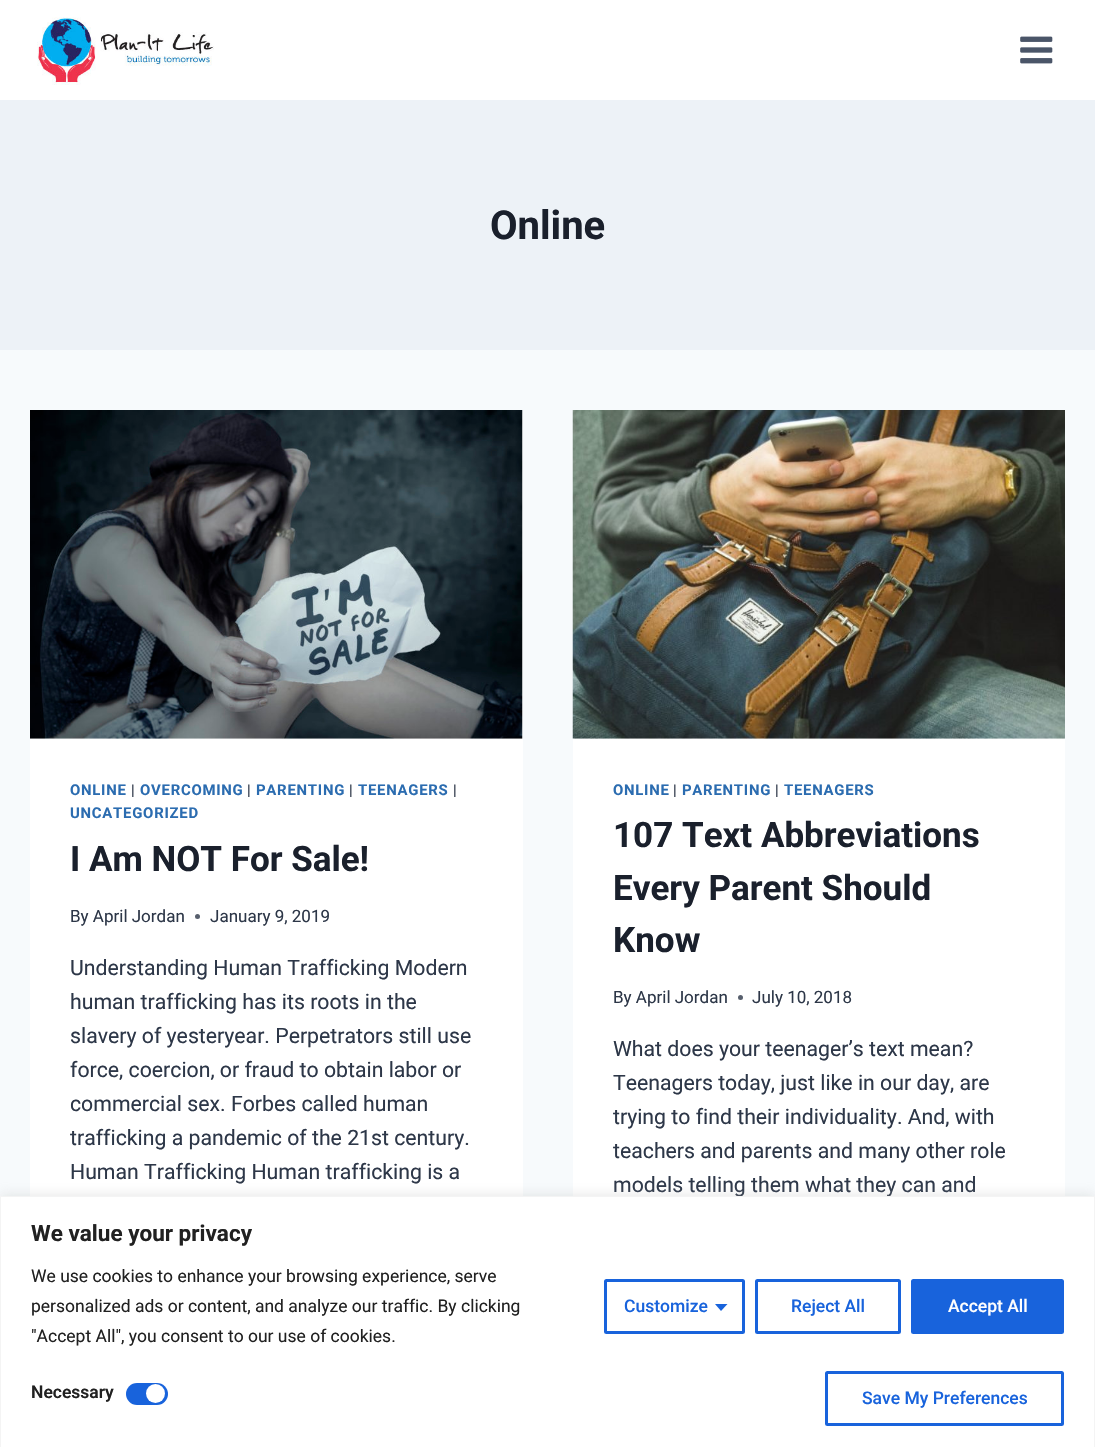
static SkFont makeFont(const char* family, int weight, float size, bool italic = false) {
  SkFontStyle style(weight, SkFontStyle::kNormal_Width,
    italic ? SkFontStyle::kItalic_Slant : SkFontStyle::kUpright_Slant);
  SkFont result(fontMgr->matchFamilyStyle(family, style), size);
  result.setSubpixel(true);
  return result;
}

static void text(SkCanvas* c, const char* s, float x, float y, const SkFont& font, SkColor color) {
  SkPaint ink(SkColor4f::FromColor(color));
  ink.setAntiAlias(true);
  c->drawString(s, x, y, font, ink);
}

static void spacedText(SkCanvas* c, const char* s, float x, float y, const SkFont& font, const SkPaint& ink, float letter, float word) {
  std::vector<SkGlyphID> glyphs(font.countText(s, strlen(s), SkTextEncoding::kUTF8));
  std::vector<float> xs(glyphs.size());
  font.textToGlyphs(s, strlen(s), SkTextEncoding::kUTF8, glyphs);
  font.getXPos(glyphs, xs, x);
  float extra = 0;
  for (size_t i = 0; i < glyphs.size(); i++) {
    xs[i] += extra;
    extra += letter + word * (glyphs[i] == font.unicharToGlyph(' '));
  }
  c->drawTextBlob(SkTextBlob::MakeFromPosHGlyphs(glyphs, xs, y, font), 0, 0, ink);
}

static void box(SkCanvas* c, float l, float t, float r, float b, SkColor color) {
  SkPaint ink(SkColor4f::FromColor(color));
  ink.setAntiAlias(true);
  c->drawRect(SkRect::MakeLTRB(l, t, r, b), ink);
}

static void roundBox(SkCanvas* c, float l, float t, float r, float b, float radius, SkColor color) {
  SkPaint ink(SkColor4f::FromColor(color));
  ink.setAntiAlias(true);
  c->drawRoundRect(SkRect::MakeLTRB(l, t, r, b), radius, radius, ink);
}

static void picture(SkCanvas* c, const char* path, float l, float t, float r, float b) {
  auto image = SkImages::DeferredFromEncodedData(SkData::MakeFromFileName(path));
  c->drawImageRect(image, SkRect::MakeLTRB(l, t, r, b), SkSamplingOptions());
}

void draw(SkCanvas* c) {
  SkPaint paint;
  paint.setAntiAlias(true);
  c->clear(0xfff7fafc);
  box(c, 0, 0, 1095, 100, 0xffffffff);
  picture(c, "img_01.png", 37, 17, 214, 85);
  picture(c, "img_02.png", 1020, 36, 1053, 64);
  box(c, 0, 100, 1095, 350, 0xffedf2f7);
  SkFont face1 = makeFont("Roboto", 700, 40);
  text(c, "Online", 490, 239, face1, 0xff1a202c);
  roundBox(c, 30, 410, 523, 1400, 5, 0xffffffff);
  picture(c, "img_03.png", 30, 410, 523, 739);
  SkFont face2 = makeFont("Roboto", 700, 14.9f);
  paint.setColor(0xff2b6cb0);
  spacedText(c, "ONLINE", 70, 795, face2, paint, 0.75f, 0);
  SkFont face3 = makeFont("Roboto", 400, 14.9f);
  paint.setColor(0xff2d3748);
  spacedText(c, "|", 131, 795, face3, paint, 0.75f, 0);
  paint.setColor(0xff2b6cb0);
  spacedText(c, "OVERCOMING", 140, 795, face2, paint, 0.75f, 0);
  paint.setColor(0xff2d3748);
  spacedText(c, "|", 247, 795, face3, paint, 0.75f, 0);
  paint.setColor(0xff2b6cb0);
  spacedText(c, "PARENTING", 256, 795, face2, paint, 0.75f, 0);
  paint.setColor(0xff2d3748);
  spacedText(c, "|", 349, 795, face3, paint, 0.75f, 0);
  paint.setColor(0xff2b6cb0);
  spacedText(c, "TEENAGERS", 358, 795, face2, paint, 0.75f, 0);
  paint.setColor(0xff2d3748);
  spacedText(c, "|", 453, 795, face3, paint, 0.75f, 0);
  paint.setColor(0xff2b6cb0);
  spacedText(c, "UNCATEGORIZED", 70, 818, face2, paint, 0.75f, 0);
  SkFont face4 = makeFont("Roboto", 700, 35);
  text(c, "I Am NOT For Sale!", 70, 871, face4, 0xff1a202c);
  SkFont face5 = makeFont("Roboto", 400, 17);
  text(c, "By April Jordan", 70, 922, face5, 0xff2d3748);
  paint.setColor(0xff575f6d);
  c->drawCircle(197.5f, 916.5f, 2.5f, paint);
  text(c, "January 9, 2019", 210, 922, face5, 0xff2d3748);
  SkFont face6 = makeFont("Roboto", 400, 21.25f);
  text(c, "Understanding Human Trafficking Modern", 70, 975, face6, 0xff2d3748);
  text(c, "human trafficking has its roots in the", 70, 1009, face6, 0xff2d3748);
  text(c, "slavery of yesteryear. Perpetrators still use", 70, 1043, face6, 0xff2d3748);
  text(c, "force, coercion, or fraud to obtain labor or", 70, 1077, face6, 0xff2d3748);
  text(c, "commercial sex. Forbes called human", 70, 1111, face6, 0xff2d3748);
  text(c, "trafficking a pandemic of the 21st century.", 70, 1145, face6, 0xff2d3748);
  text(c, "Human Trafficking Human trafficking is a", 70, 1179, face6, 0xff2d3748);
  box(c, 573, 738, 1065, 1196, 0xffffffff);
  picture(c, "img_04.png", 572, 410, 1065, 739);
  paint.setColor(0xff2b6cb0);
  spacedText(c, "ONLINE", 613, 795, face2, paint, 0.75f, 0);
  paint.setColor(0xff2d3748);
  spacedText(c, "|", 673, 795, face3, paint, 0.75f, 0);
  paint.setColor(0xff2b6cb0);
  spacedText(c, "PARENTING", 682, 795, face2, paint, 0.75f, 0);
  paint.setColor(0xff2d3748);
  spacedText(c, "|", 775, 795, face3, paint, 0.75f, 0);
  paint.setColor(0xff2b6cb0);
  spacedText(c, "TEENAGERS", 784, 795, face2, paint, 0.75f, 0);
  text(c, "107 Text Abbreviations", 613, 847, face4, 0xff1a202c);
  text(c, "Every Parent Should", 613, 900, face4, 0xff1a202c);
  text(c, "Know", 613, 952, face4, 0xff1a202c);
  text(c, "By April Jordan", 613, 1003, face5, 0xff2d3748);
  paint.setColor(0xff575f6d);
  c->drawCircle(740.5f, 997.5f, 2.5f, paint);
  text(c, "July 10, 2018", 752, 1003, face5, 0xff2d3748);
  text(c, "What does your teenager’s text mean?", 613, 1056, face6, 0xff2d3748);
  text(c, "Teenagers today, just like in our day, are", 613, 1090, face6, 0xff2d3748);
  text(c, "trying to find their individuality. And, with", 613, 1124, face6, 0xff2d3748);
  text(c, "teachers and parents and many other role", 613, 1158, face6, 0xff2d3748);
  text(c, "models telling them what they can and", 613, 1192, face6, 0xff2d3748);
  paint.setColor(0x4dacabab);
  paint.setMaskFilter(SkMaskFilter::MakeBlur(kNormal_SkBlurStyle, 6));
  c->drawRect(SkRect::MakeLTRB(0, 1195, 1095, 1446), paint);
  paint.setMaskFilter(nullptr);
  paint.setColor(0xffffffff);
  c->drawRect(SkRect::MakeLTRB(0.5f, 1196.5f, 1094.5f, 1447.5f), paint);
  paint.setStyle(SkPaint::kStroke_Style);
  paint.setStrokeWidth(1);
  paint.setColor(0xfff4f4f4);
  c->drawRect(SkRect::MakeLTRB(0.5f, 1196.5f, 1094.5f, 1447.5f), paint);
  SkFont face7 = makeFont("Roboto", 700, 22.5f);
  text(c, "We value your privacy", 31, 1241, face7, 0xff212121);
  SkFont face8 = makeFont("Roboto", 400, 17.5f);
  text(c, "We use cookies to enhance your browsing experience, serve", 31, 1282, face8, 0xff212121);
  text(c, "personalized ads or content, and analyze our traffic. By clicking", 31, 1312, face8, 0xff212121);
  text(c, "\"Accept All\", you consent to our use of cookies.", 31, 1342, face8, 0xff212121);
  paint.setStrokeWidth(3);
  paint.setColor(0xff1863dc);
  c->drawRoundRect(SkRect::MakeLTRB(605.5f, 1280.5f, 743.5f, 1332.5f), 1, 1, paint);
  SkFont face9 = makeFont("Roboto", 500, 17.5f);
  text(c, "Customize", 624, 1312, face9, 0xff1863dc);
  paint.setStyle(SkPaint::kFill_Style);
  c->drawPath(SkPathBuilder().moveTo(715, 1304).lineTo(727.5f, 1304).lineTo(721, 1311).close().detach(), paint);
  paint.setStyle(SkPaint::kStroke_Style);
  c->drawRoundRect(SkRect::MakeLTRB(756.5f, 1280.5f, 899.5f, 1332.5f), 1, 1, paint);
  text(c, "Reject All", 791, 1312, face9, 0xff1863dc);
  paint.setStyle(SkPaint::kFill_Style);
  c->drawRoundRect(SkRect::MakeLTRB(912.5f, 1280.5f, 1062.5f, 1332.5f), 1, 1, paint);
  paint.setStyle(SkPaint::kStroke_Style);
  c->drawRoundRect(SkRect::MakeLTRB(912.5f, 1280.5f, 1062.5f, 1332.5f), 1, 1, paint);
  text(c, "Accept All", 948, 1312, face9, 0xffffffff);
  SkFont face10 = makeFont("Roboto", 600, 17.5f);
  text(c, "Necessary", 31, 1398, face10, 0xff212121);
  roundBox(c, 126, 1383, 168, 1405, 11, 0xff1863dc);
  paint.setStyle(SkPaint::kFill_Style);
  paint.setColor(0xffffffff);
  c->drawCircle(155.5f, 1393.5f, 9.5f, paint);
  paint.setStyle(SkPaint::kStroke_Style);
  paint.setColor(0xff1863dc);
  c->drawRoundRect(SkRect::MakeLTRB(826.5f, 1372.5f, 1062.5f, 1424.5f), 1, 1, paint);
  text(c, "Save My Preferences", 862, 1404, face9, 0xff1863dc);
}
